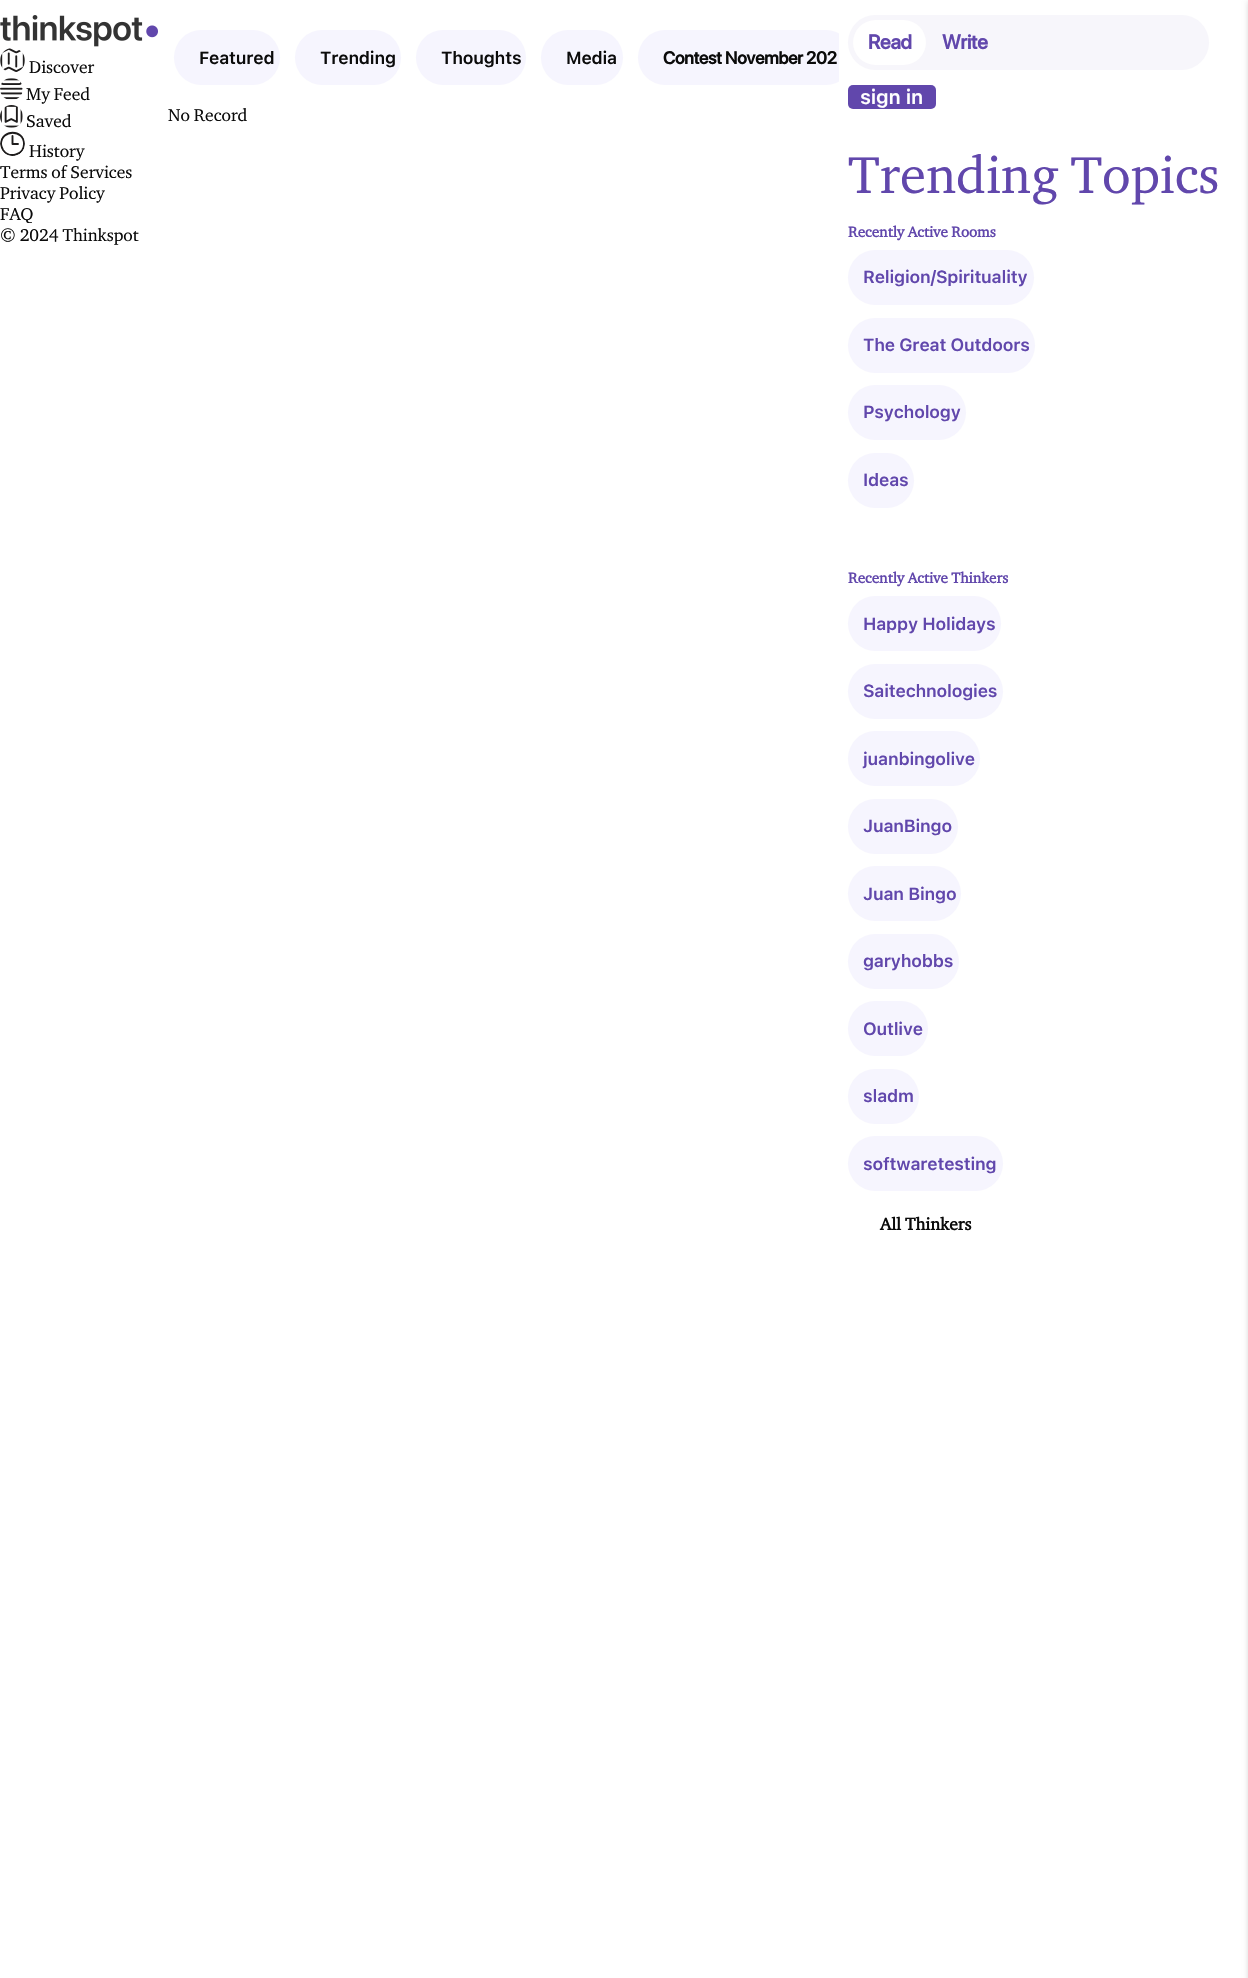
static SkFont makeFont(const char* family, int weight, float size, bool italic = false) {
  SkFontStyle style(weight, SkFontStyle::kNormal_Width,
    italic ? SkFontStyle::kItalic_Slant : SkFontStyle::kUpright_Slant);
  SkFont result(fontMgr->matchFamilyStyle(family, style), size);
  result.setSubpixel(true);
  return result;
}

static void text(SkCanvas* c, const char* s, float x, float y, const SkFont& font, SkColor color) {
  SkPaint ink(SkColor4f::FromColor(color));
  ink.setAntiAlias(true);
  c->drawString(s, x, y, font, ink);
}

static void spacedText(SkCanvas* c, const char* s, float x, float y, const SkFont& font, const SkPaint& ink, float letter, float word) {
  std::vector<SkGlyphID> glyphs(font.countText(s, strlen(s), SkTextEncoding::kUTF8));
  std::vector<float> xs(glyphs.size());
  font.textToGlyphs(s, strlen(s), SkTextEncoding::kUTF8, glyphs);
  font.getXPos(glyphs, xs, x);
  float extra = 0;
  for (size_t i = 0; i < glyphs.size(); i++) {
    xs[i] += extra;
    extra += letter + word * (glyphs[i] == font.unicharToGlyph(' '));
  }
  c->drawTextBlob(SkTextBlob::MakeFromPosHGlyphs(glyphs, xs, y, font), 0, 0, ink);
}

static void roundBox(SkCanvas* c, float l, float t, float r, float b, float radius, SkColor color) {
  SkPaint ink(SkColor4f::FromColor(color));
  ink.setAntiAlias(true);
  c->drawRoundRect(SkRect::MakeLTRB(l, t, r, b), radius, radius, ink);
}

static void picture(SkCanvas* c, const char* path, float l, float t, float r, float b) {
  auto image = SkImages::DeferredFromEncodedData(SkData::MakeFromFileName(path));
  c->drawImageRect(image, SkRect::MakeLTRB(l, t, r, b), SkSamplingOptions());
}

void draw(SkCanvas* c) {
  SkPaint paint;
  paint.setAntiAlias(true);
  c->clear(0xffffffff);
  picture(c, "img_01.png", 0, 15, 143, 47);
  picture(c, "img_02.png", 146, 25, 158, 38);
  picture(c, "img_03.png", 0, 48, 25, 72);
  SkFont face1 = makeFont("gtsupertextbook", 400, 17.5f);
  text(c, "Discover", 29, 73, face1, 0xff0b0b0b);
  picture(c, "img_04.png", 0, 78, 23, 100);
  text(c, "My Feed", 26, 100, face1, 0xff0b0b0b);
  picture(c, "img_05.png", 0, 105, 23, 128);
  text(c, "Saved", 26, 127, face1, 0xff0b0b0b);
  text(c, "History", 29, 157, face1, 0xff0b0b0b);
  c->save();
  c->clipPath(SkPathBuilder().moveTo(12.5f, 131).cubicTo(19.5f, 131, 25, 136.5f, 25, 143.5f).cubicTo(25, 150.5f, 19.5f, 156, 12.5f, 156).cubicTo(5.5f, 156, 0, 150.5f, 0, 143.5f).cubicTo(0, 136.5f, 5.5f, 131, 12.5f, 131).close().detach(), true);
  paint.setStyle(SkPaint::kStroke_Style);
  paint.setStrokeWidth(1.9f);
  paint.setStrokeCap(SkPaint::kRound_Cap);
  paint.setStrokeJoin(SkPaint::kRound_Join);
  paint.setColor(0xff1e1c1c);
  c->drawPath(SkPathBuilder().moveTo(12.5f, 136).lineTo(12.5f, 144).lineTo(18, 144).moveTo(24, 144).cubicTo(24, 155, 9.5f, 159, 3, 150).cubicTo(2, 148, 1, 146, 1, 144).cubicTo(1.5f, 129, 24, 129, 24, 144).close().detach(), paint);
  c->restore();
  text(c, "Terms of Services", 0, 178, face1, 0xff0b0b0b);
  text(c, "Privacy Policy", 0, 199, face1, 0xff0b0b0b);
  text(c, "FAQ", 0, 220, face1, 0xff0b0b0b);
  text(c, "© 2024 Thinkspot", 0, 241, face1, 0xff0b0b0b);
  roundBox(c, 174, 30, 280, 85, 27.5f, 0xfff6f5fe);
  SkFont face2 = makeFont("SF Pro Text", 600, 17.5f);
  paint.setStyle(SkPaint::kFill_Style);
  paint.setColor(0xff0b0b0b);
  spacedText(c, "Featured", 199, 64, face2, paint, -0.2f, 0);
  roundBox(c, 295, 30, 401, 85, 27.5f, 0xfff6f5fe);
  spacedText(c, "Trending", 320, 64, face2, paint, -0.2f, 0);
  roundBox(c, 416, 30, 526, 85, 27.5f, 0xfff6f5fe);
  spacedText(c, "Thoughts", 441, 64, face2, paint, -0.2f, 0);
  roundBox(c, 541, 30, 623, 85, 27.5f, 0xfff6f5fe);
  spacedText(c, "Media", 566, 64, face2, paint, -0.2f, 0);
  roundBox(c, 848, 15, 1209, 70, 27.5f, 0xfff7f6fb);
  c->save();
  c->clipRect(SkRect::MakeLTRB(168, 30, 839, 85));
  roundBox(c, 638, 30, 853, 85, 27.5f, 0xfff6f5fe);
  c->restore();
  SkFont face3 = makeFont("SF Pro Display", 700, 17.5f);
  spacedText(c, "Contest November 202", 663, 64, face3, paint, -0.2f, 0);
  text(c, "No Record", 168, 121, face1, 0xff0b0b0b);
  roundBox(c, 853, 20, 926, 65, 22.5f, 0xffffffff);
  SkFont face4 = makeFont("SF Pro Display", 700, 20);
  paint.setColor(0xff6147ac);
  spacedText(c, "Read", 868, 49, face4, paint, -0.2f, 0);
  spacedText(c, "Write", 942, 49, face4, paint, -0.2f, 0);
  roundBox(c, 848, 85, 936, 109, 5, 0xff6147ac);
  SkFont face5 = makeFont("SF Pro Text", 600, 20);
  paint.setColor(0xffffffff);
  spacedText(c, "sign in", 860, 104, face5, paint, -0.2f, 0);
  SkFont face6 = makeFont("gtsupertextbook", 400, 53);
  text(c, "Trending Topics", 848, 193, face6, 0xff6147ac);
  SkFont face7 = makeFont("gtsupertextbook", 700, 15);
  text(c, "Recently Active Rooms", 848, 237, face7, 0xff6147ac);
  roundBox(c, 848, 250, 1034, 305, 27.5f, 0xfff6f5fe);
  paint.setColor(0xff6147ac);
  spacedText(c, "Religion/Spirituality", 863, 283, face2, paint, -0.2f, 0);
  roundBox(c, 848, 318, 1035, 373, 27.5f, 0xfff6f5fe);
  spacedText(c, "The Great Outdoors", 863, 351, face2, paint, -0.2f, 0);
  roundBox(c, 848, 385, 966, 440, 27.5f, 0xfff6f5fe);
  spacedText(c, "Psychology", 863, 418, face2, paint, -0.2f, 0);
  roundBox(c, 848, 453, 914, 508, 27.5f, 0xfff6f5fe);
  spacedText(c, "Ideas", 863, 486, face2, paint, -0.2f, 0);
  text(c, "Recently Active Thinkers", 848, 583, face7, 0xff6147ac);
  roundBox(c, 848, 596, 1001, 651, 27.5f, 0xfff6f5fe);
  spacedText(c, "Happy Holidays", 863, 630, face2, paint, -0.2f, 0);
  roundBox(c, 848, 664, 1003, 719, 27.5f, 0xfff6f5fe);
  spacedText(c, "Saitechnologies", 863, 697, face2, paint, -0.2f, 0);
  roundBox(c, 848, 731, 980, 786, 27.5f, 0xfff6f5fe);
  spacedText(c, "juanbingolive", 863, 765, face2, paint, -0.2f, 0);
  roundBox(c, 848, 799, 958, 854, 27.5f, 0xfff6f5fe);
  spacedText(c, "JuanBingo", 863, 832, face2, paint, -0.2f, 0);
  roundBox(c, 848, 866, 961, 921, 27.5f, 0xfff6f5fe);
  spacedText(c, "Juan Bingo", 863, 900, face2, paint, -0.2f, 0);
  roundBox(c, 848, 934, 959, 989, 27.5f, 0xfff6f5fe);
  spacedText(c, "garyhobbs", 863, 967, face2, paint, -0.2f, 0);
  roundBox(c, 848, 1001, 928, 1056, 27.5f, 0xfff6f5fe);
  spacedText(c, "Outlive", 863, 1035, face2, paint, -0.2f, 0);
  roundBox(c, 848, 1069, 919, 1124, 27.5f, 0xfff6f5fe);
  spacedText(c, "sladm", 863, 1102, face2, paint, -0.2f, 0);
  roundBox(c, 848, 1136, 1003, 1191, 27.5f, 0xfff6f5fe);
  spacedText(c, "softwaretesting", 863, 1170, face2, paint, -0.2f, 0);
  SkFont face8 = makeFont("gtsupertextbook", 700, 17.5f);
  text(c, "All Thinkers", 880, 1230, face8, 0xff0b0b0b);
  paint.setColor(0x33000000);
  paint.setMaskFilter(SkMaskFilter::MakeBlur(kNormal_SkBlurStyle, 3));
  c->drawRect(SkRect::MakeLTRB(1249, 1, 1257, 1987), paint);
  paint.setMaskFilter(nullptr);
}
